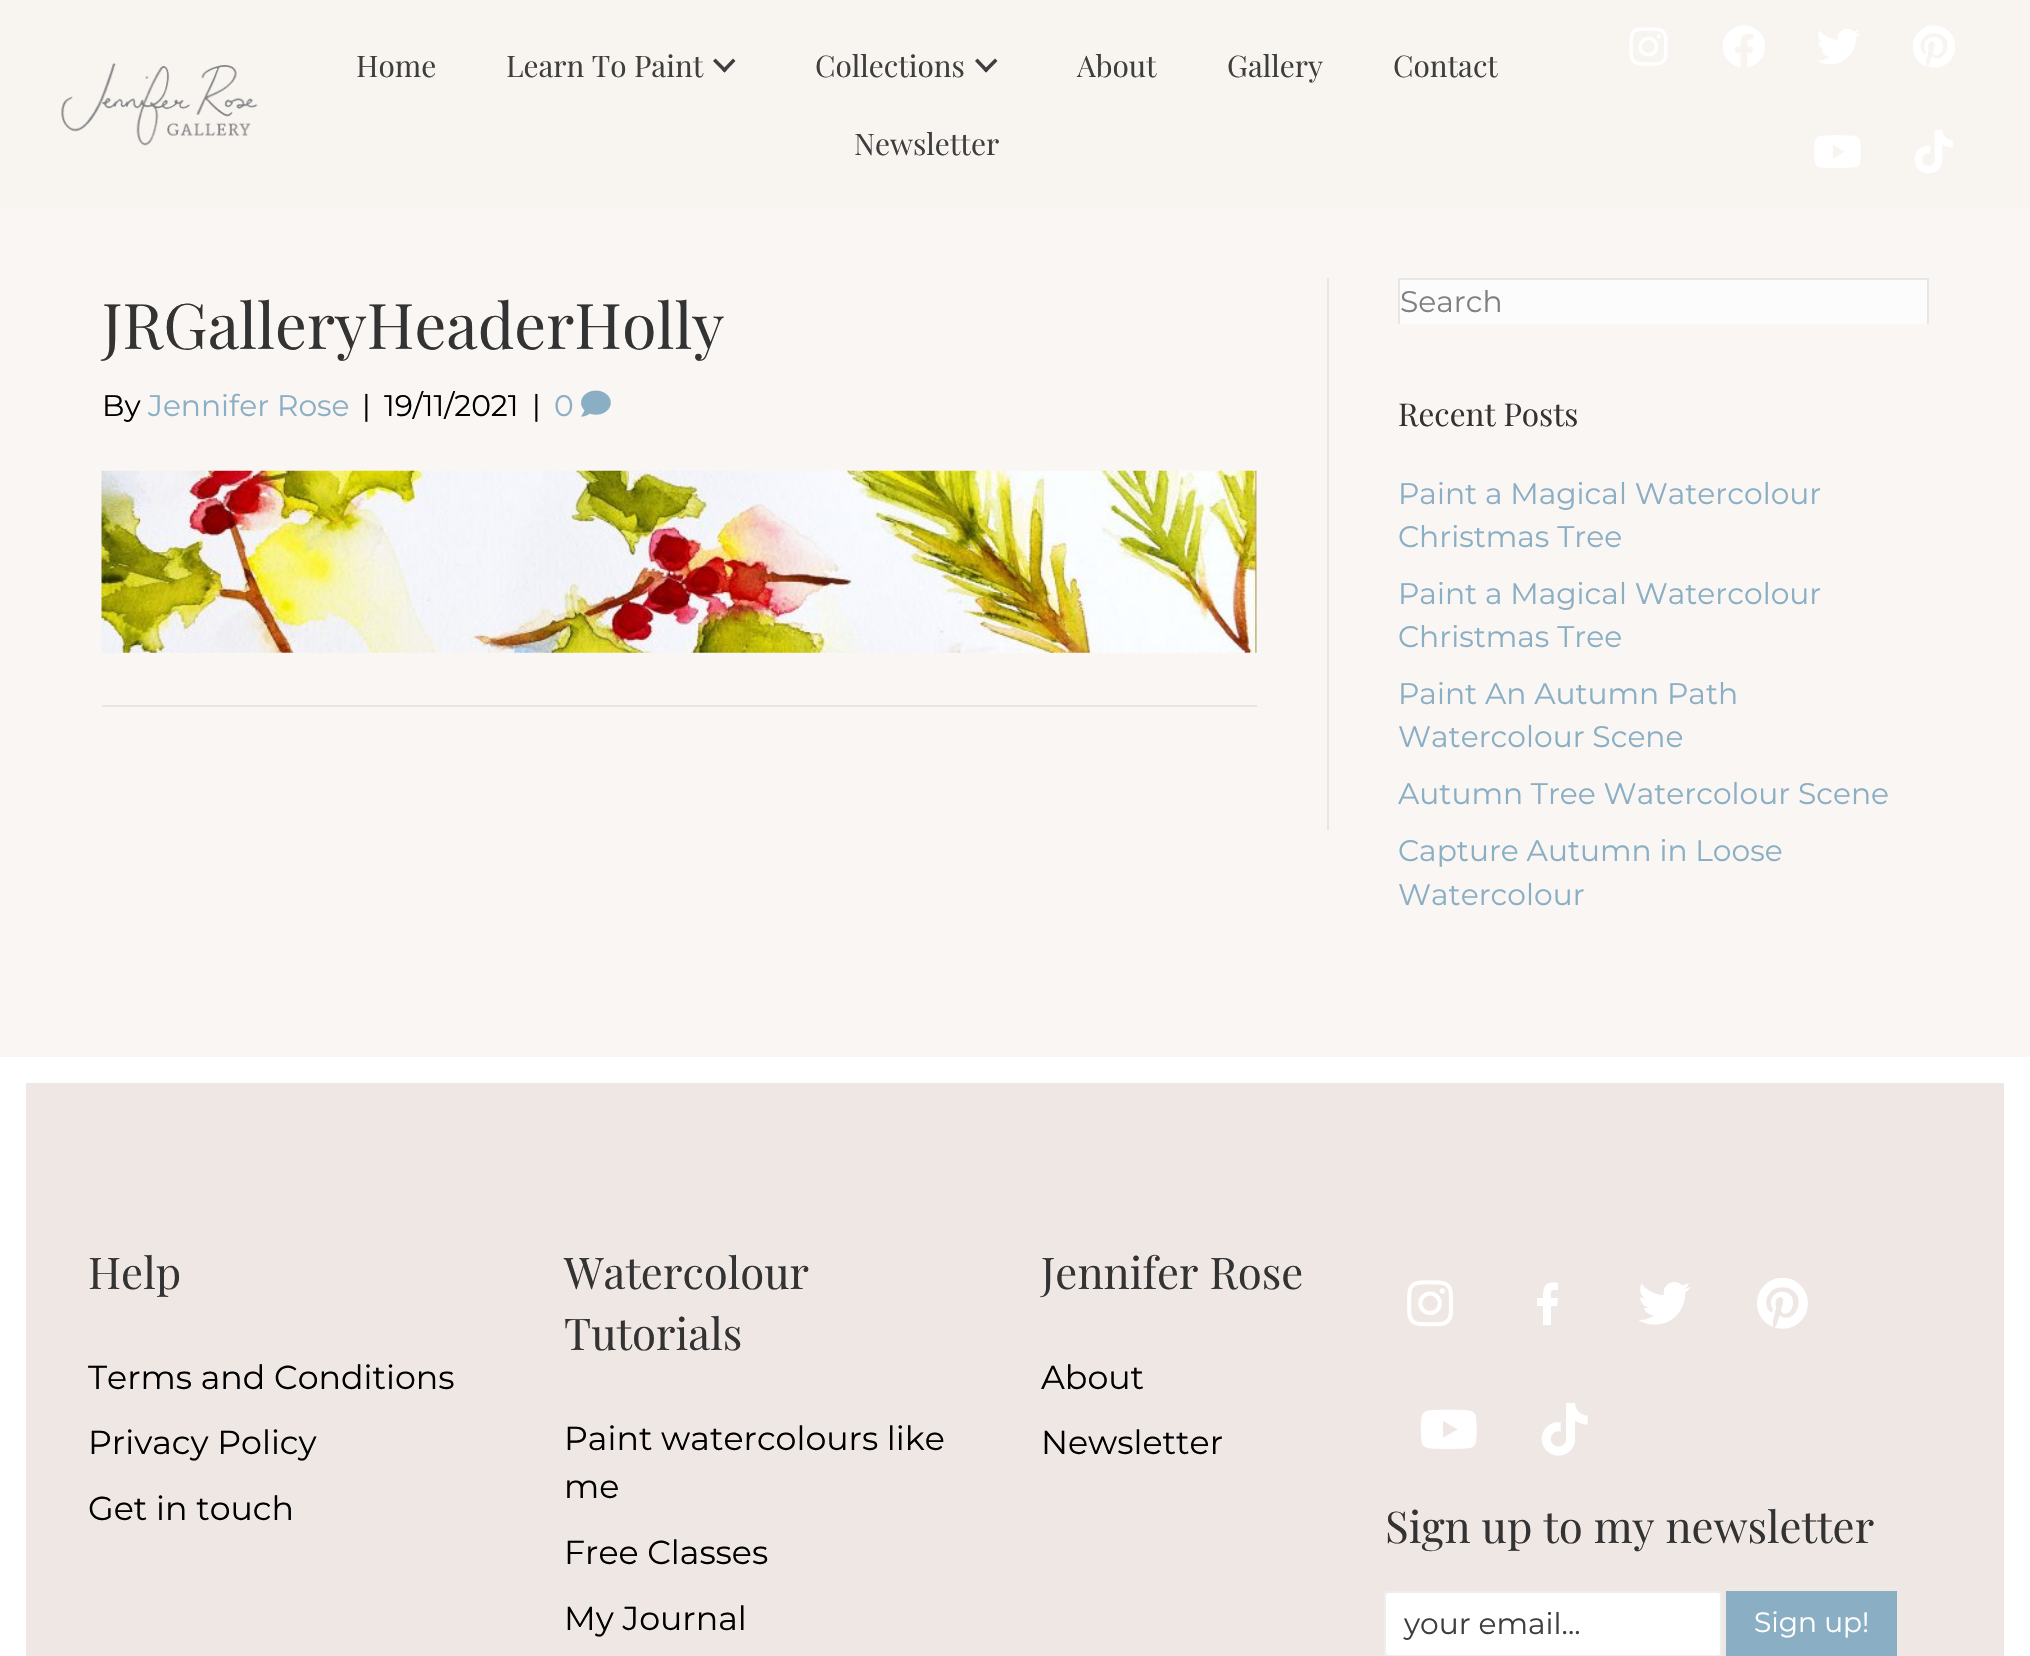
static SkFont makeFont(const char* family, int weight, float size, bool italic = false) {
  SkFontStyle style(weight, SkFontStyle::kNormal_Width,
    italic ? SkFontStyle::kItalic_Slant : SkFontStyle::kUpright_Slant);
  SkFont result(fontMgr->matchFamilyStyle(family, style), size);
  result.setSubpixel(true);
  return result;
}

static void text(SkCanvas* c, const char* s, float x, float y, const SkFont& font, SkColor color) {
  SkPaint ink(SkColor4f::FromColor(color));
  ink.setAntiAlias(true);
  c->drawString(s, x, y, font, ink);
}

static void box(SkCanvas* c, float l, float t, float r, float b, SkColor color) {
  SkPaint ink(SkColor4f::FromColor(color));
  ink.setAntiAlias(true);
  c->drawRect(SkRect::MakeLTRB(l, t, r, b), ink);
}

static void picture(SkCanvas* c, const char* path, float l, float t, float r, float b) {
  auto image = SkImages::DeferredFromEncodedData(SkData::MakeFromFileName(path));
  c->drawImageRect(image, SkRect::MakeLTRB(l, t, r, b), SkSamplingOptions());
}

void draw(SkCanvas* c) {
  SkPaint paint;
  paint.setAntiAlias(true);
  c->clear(0xffffffff);
  box(c, 0, 0, 2030, 208, 0xfff8f5f1);
  picture(c, "img_01.png", 61, 63, 258, 146);
  SkFont face1 = makeFont("Playfair Display", 400, 29.75f);
  text(c, "Home", 356, 77, face1, 0xff3e3e3e);
  text(c, "Learn To Paint", 506, 77, face1, 0xff3e3e3e);
  paint.setColor(0xff3e3e3e);
  c->drawPath(SkPathBuilder().moveTo(733, 58.5f).lineTo(735.5f, 61).lineTo(724.5f, 72.5f).lineTo(722, 70).close().detach(), paint);
  c->drawPath(SkPathBuilder().moveTo(715.5f, 58.5f).lineTo(727, 70).lineTo(724.5f, 72.5f).lineTo(713, 61).close().detach(), paint);
  text(c, "Collections", 815, 77, face1, 0xff3e3e3e);
  c->drawPath(SkPathBuilder().moveTo(995, 58.5f).lineTo(997.5f, 61).lineTo(986, 72.5f).lineTo(983.5f, 70).close().detach(), paint);
  c->drawPath(SkPathBuilder().moveTo(977.5f, 58.5f).lineTo(988.5f, 70).lineTo(986, 72.5f).lineTo(975, 61).close().detach(), paint);
  text(c, "About", 1077, 77, face1, 0xff3e3e3e);
  text(c, "Gallery", 1227, 77, face1, 0xff3e3e3e);
  text(c, "Contact", 1393, 77, face1, 0xff3e3e3e);
  text(c, "Newsletter", 854, 155, face1, 0xff3e3e3e);
  picture(c, "img_02.png", 1629, 27, 1668, 66);
  picture(c, "img_03.png", 1722, 25, 1765, 68);
  picture(c, "img_04.png", 1817, 29, 1860, 65);
  picture(c, "img_05.png", 1913, 25, 1955, 68);
  picture(c, "img_06.png", 1814, 135, 1861, 168);
  picture(c, "img_07.png", 1914, 130, 1953, 174);
  box(c, 0, 208, 2030, 1057, 0xfffaf6f3);
  box(c, 1327, 278, 1329, 830, 0xffe6e6e6);
  SkFont face2 = makeFont("Playfair Display", 400, 63);
  text(c, "JRGalleryHeaderHolly", 102, 349, face2, 0xff333333);
  SkFont face3 = makeFont("Montserrat", 400, 29.75f);
  text(c, "By", 102, 416, face3, 0xff000000);
  text(c, "Jennifer Rose", 148, 416, face3, 0xff8aafc4);
  text(c, "|", 362, 416, face3, 0xff000000);
  text(c, "19/11/2021", 384, 416, face3, 0xff000000);
  text(c, "|", 532, 416, face3, 0xff000000);
  text(c, "0", 554, 416, face3, 0xff8aafc4);
  picture(c, "img_08.png", 581, 390, 611, 417);
  picture(c, "img_09.png", 101, 470, 1257, 653);
  box(c, 102, 705, 1257, 707, 0xffe6e6e6);
  box(c, 1400, 280, 1927, 324, 0xfffcfcfc);
  box(c, 1398, 278, 1929, 280, 0xffe6e6e6);
  box(c, 1927, 278, 1929, 324, 0xffe6e6e6);
  box(c, 1398, 278, 1400, 324, 0xffe6e6e6);
  text(c, "Search", 1400, 312, face3, 0xff808080);
  SkFont face4 = makeFont("Playfair Display", 400, 31.5f);
  text(c, "Recent Posts", 1398, 426, face4, 0xff333333);
  text(c, "Paint a Magical Watercolour", 1398, 504, face3, 0xff8aafc4);
  text(c, "Christmas Tree", 1398, 547, face3, 0xff8aafc4);
  text(c, "Paint a Magical Watercolour", 1398, 604, face3, 0xff8aafc4);
  text(c, "Christmas Tree", 1398, 647, face3, 0xff8aafc4);
  text(c, "Paint An Autumn Path", 1398, 704, face3, 0xff8aafc4);
  text(c, "Watercolour Scene", 1398, 747, face3, 0xff8aafc4);
  text(c, "Autumn Tree Watercolour Scene", 1398, 804, face3, 0xff8aafc4);
  text(c, "Capture Autumn in Loose", 1398, 861, face3, 0xff8aafc4);
  text(c, "Watercolour", 1398, 905, face3, 0xff8aafc4);
  box(c, 26, 1083, 2004, 1656, 0xffefe7e4);
  SkFont face5 = makeFont("Playfair Display", 400, 43.75f);
  text(c, "Help", 88, 1289, face5, 0xff333333);
  SkFont face6 = makeFont("Montserrat", 400, 33.25f);
  text(c, "Terms and Conditions", 88, 1389, face6, 0xff000000);
  text(c, "Privacy Policy", 88, 1454, face6, 0xff000000);
  text(c, "Get in touch", 88, 1520, face6, 0xff000000);
  text(c, "Watercolour", 564, 1289, face5, 0xff333333);
  text(c, "Tutorials", 564, 1350, face5, 0xff333333);
  text(c, "Paint watercolours like", 564, 1450, face6, 0xff000000);
  text(c, "me", 564, 1498, face6, 0xff000000);
  text(c, "Free Classes", 564, 1564, face6, 0xff000000);
  text(c, "My Journal", 564, 1630, face6, 0xff000000);
  text(c, "Jennifer Rose", 1041, 1289, face5, 0xff333333);
  text(c, "About", 1041, 1389, face6, 0xff000000);
  text(c, "Newsletter", 1041, 1454, face6, 0xff000000);
  picture(c, "img_10.png", 1407, 1280, 1453, 1327);
  paint.setColor(0xffffffff);
  c->drawPath(SkPathBuilder().moveTo(1543, 1325).lineTo(1551, 1325).lineTo(1551, 1306).lineTo(1557, 1306).lineTo(1558, 1298).lineTo(1551, 1298).cubicTo(1551, 1290, 1550, 1290, 1558, 1290).lineTo(1558, 1283).cubicTo(1545, 1281, 1543, 1286, 1543, 1298).lineTo(1537, 1298).lineTo(1537, 1306).lineTo(1543, 1306).close().detach(), paint);
  picture(c, "img_11.png", 1639, 1282, 1690, 1325);
  picture(c, "img_12.png", 1757, 1278, 1808, 1329);
  picture(c, "img_13.png", 1420, 1409, 1477, 1449);
  picture(c, "img_14.png", 1541, 1403, 1588, 1456);
  text(c, "Sign up to my newsletter", 1385, 1543, face5, 0xff333333);
  c->drawRoundRect(SkRect::MakeLTRB(1385, 1592, 1721, 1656), 3, 3, paint);
  paint.setStyle(SkPaint::kStroke_Style);
  paint.setStrokeWidth(2);
  paint.setColor(0xffeeeeee);
  c->drawRoundRect(SkRect::MakeLTRB(1385, 1592, 1721, 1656), 3, 3, paint);
  text(c, "your email...", 1404, 1634, face3, 0xff3e3e3e);
  box(c, 1726, 1591, 1897, 1656, 0xff8aafc4);
  SkFont face7 = makeFont("Montserrat", 400, 28);
  text(c, "Sign up!", 1754, 1632, face7, 0xffffffff);
}
